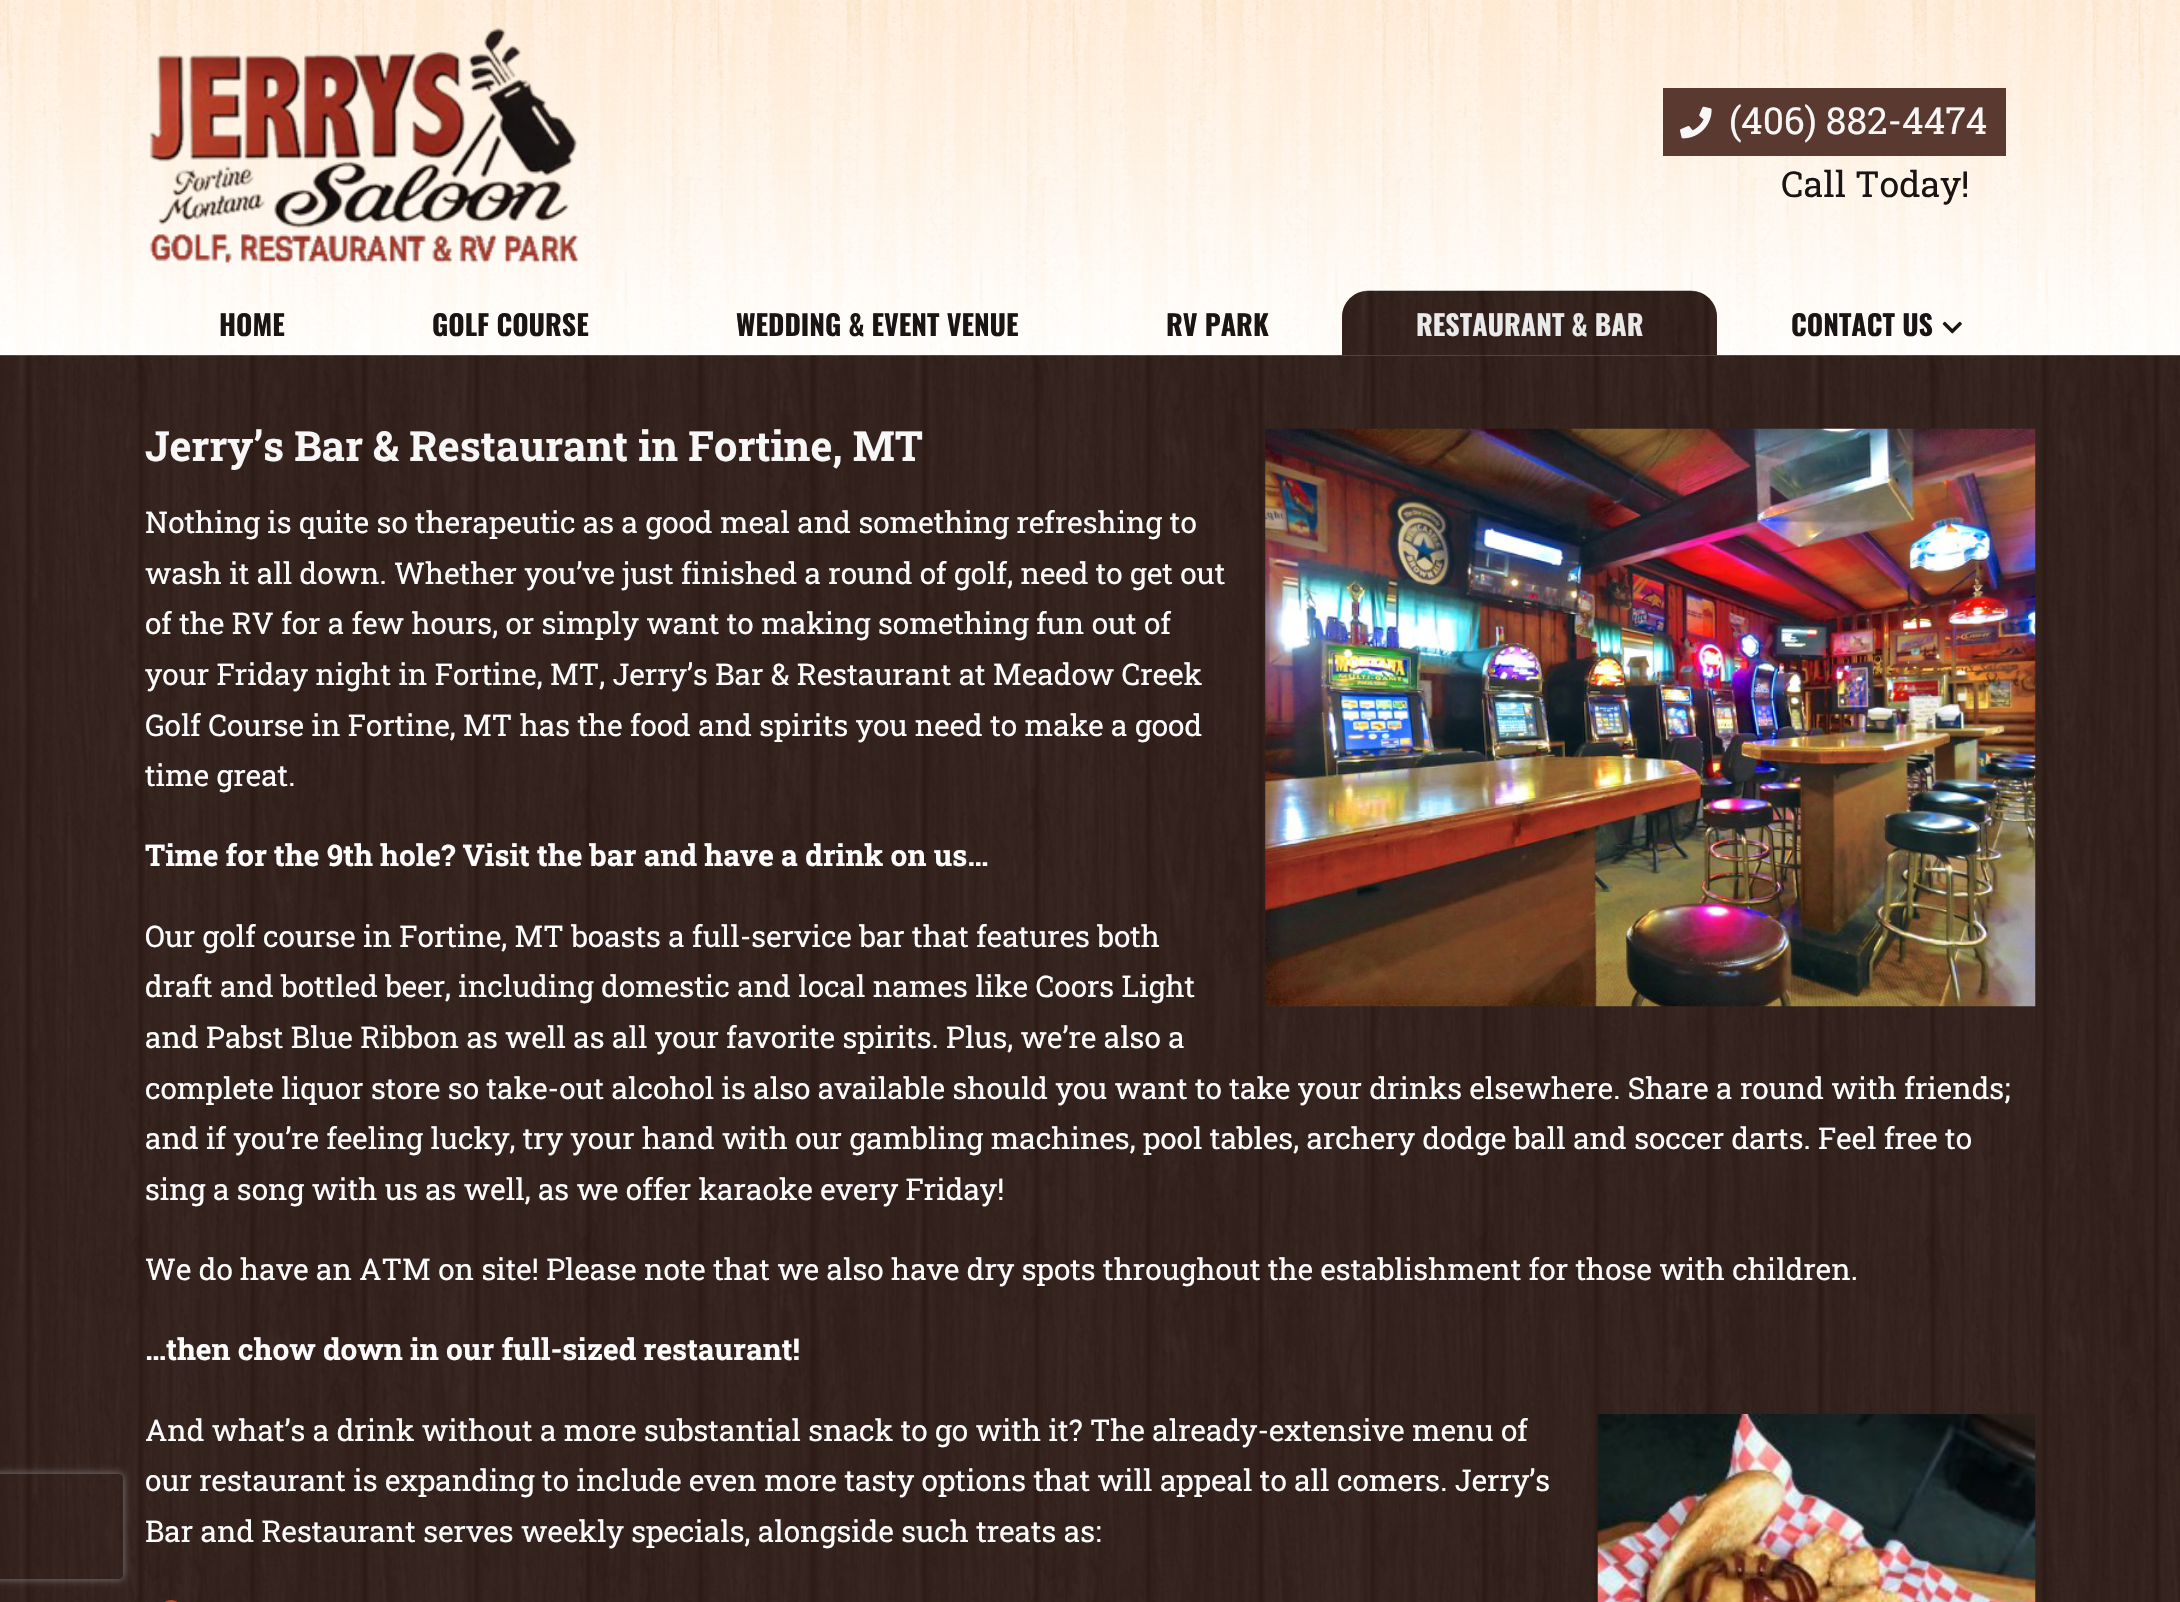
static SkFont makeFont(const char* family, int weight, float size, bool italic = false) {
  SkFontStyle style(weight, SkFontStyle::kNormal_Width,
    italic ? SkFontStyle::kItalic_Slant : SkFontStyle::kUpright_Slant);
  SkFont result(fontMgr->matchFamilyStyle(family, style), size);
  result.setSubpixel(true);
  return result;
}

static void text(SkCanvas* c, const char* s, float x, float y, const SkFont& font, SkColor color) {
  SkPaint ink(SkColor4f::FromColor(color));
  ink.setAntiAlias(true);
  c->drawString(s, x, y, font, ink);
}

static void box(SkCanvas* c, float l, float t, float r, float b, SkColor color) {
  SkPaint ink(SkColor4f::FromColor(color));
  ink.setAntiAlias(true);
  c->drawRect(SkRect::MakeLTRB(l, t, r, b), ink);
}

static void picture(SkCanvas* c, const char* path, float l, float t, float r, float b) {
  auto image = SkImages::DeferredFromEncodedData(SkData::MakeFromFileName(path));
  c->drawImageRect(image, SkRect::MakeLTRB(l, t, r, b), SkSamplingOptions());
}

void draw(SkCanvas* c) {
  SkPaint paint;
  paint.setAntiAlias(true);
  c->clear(0xffffffff);
  box(c, 0, 355, 2180, 1602, 0xff512f25);
  picture(c, "img_06.png", 0, 355, 2180, 1602);
  picture(c, "img_01.png", 0, 0, 2180, 356);
  picture(c, "img_02.png", 149, 27, 579, 263);
  box(c, 1663, 88, 2006, 156, 0xff5a3931);
  picture(c, "img_03.png", 1680, 106, 1712, 139);
  SkFont face1 = makeFont("Roboto Slab", 400, 37.25f);
  text(c, "(406) 882-4474", 1729, 134, face1, 0xfff7f7f7);
  SkFont face2 = makeFont("Roboto Slab", 400, 35.75f);
  text(c, "Call Today!", 1781, 197, face2, 0xff1b1414);
  SkFont face3 = makeFont("Oswald", 700, 28);
  text(c, "HOME", 219, 336, face3, 0xff1b1414);
  text(c, "GOLF COURSE", 432, 336, face3, 0xff1b1414);
  text(c, "WEDDING & EVENT VENUE", 736, 336, face3, 0xff1b1414);
  text(c, "RV PARK", 1166, 336, face3, 0xff1b1414);
  paint.setColor(0xff512f25);
  c->drawPath(SkPathBuilder().moveTo(1368, 291).lineTo(1691, 291).cubicTo(1705.5f, 291, 1717, 302.5f, 1717, 317).lineTo(1717, 355).lineTo(1342, 355).lineTo(1342, 317).cubicTo(1342, 302.5f, 1353.5f, 291, 1368, 291).close().detach(), paint);
  picture(c, "img_04.png", 1342, 290, 1717, 356);
  text(c, "RESTAURANT & BAR", 1416, 336, face3, 0xffeaeaea);
  text(c, "CONTACT US", 1791, 336, face3, 0xff1b1414);
  picture(c, "img_05.png", 1942, 321, 1962, 334);
  c->save();
  c->clipPath(SkPathBuilder(SkPathFillType::kEvenOdd).moveTo(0, 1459).lineTo(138, 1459).lineTo(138, 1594).lineTo(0, 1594).close().moveTo(-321, 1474).lineTo(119, 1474).cubicTo(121, 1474, 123, 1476, 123, 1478).lineTo(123, 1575).cubicTo(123, 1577, 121, 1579, 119, 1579).lineTo(-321, 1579).cubicTo(-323, 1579, -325, 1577, -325, 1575).lineTo(-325, 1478).cubicTo(-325, 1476, -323, 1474, -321, 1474).close().detach(), true);
  paint.setColor(0xff808080);
  paint.setMaskFilter(SkMaskFilter::MakeBlur(kNormal_SkBlurStyle, 4.5f));
  c->drawRoundRect(SkRect::MakeLTRB(-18, 1474, 123, 1579), 4, 4, paint);
  paint.setMaskFilter(nullptr);
  c->restore();
  SkFont face4 = makeFont("Roboto Slab", 700, 41.6f);
  text(c, "Jerry’s Bar & Restaurant in Fortine, MT", 145, 461, face4, 0xfff7f7f7);
  picture(c, "img_07.png", 1265, 428, 2036, 1007);
  SkFont face5 = makeFont("Roboto Slab", 400, 29.75f);
  text(c, "Nothing is quite so therapeutic as a good meal and something refreshing to", 145, 533, face5, 0xffffffff);
  text(c, "wash it all down. Whether you’ve just finished a round of golf, need to get out", 145, 584, face5, 0xffffffff);
  text(c, "of the RV for a few hours, or simply want to making something fun out of", 145, 634, face5, 0xffffffff);
  text(c, "your Friday night in Fortine, MT, Jerry’s Bar & Restaurant at Meadow Creek", 145, 685, face5, 0xffffffff);
  text(c, "Golf Course in Fortine, MT has the food and spirits you need to make a good", 145, 736, face5, 0xffffffff);
  text(c, "time great.", 145, 786, face5, 0xffffffff);
  SkFont face6 = makeFont("Roboto Slab", 700, 29.75f);
  text(c, "Time for the 9th hole? Visit the bar and have a drink on us…", 145, 866, face6, 0xffffffff);
  text(c, "Our golf course in Fortine, MT boasts a full-service bar that features both", 145, 947, face5, 0xffffffff);
  text(c, "draft and bottled beer, including domestic and local names like Coors Light", 145, 997, face5, 0xffffffff);
  text(c, "and Pabst Blue Ribbon as well as all your favorite spirits. Plus, we’re also a", 145, 1048, face5, 0xffffffff);
  text(c, "complete liquor store so take-out alcohol is also available should you want to take your drinks elsewhere. Share a round with friends;", 145, 1099, face5, 0xffffffff);
  text(c, "and if you’re feeling lucky, try your hand with our gambling machines, pool tables, archery dodge ball and soccer darts. Feel free to", 145, 1149, face5, 0xffffffff);
  text(c, "sing a song with us as well, as we offer karaoke every Friday!", 145, 1200, face5, 0xffffffff);
  text(c, "We do have an ATM on site! Please note that we also have dry spots throughout the establishment for those with children.", 145, 1280, face5, 0xffffffff);
  text(c, "…then chow down in our full-sized restaurant!", 145, 1360, face6, 0xffffffff);
  text(c, "And what’s a drink without a more substantial snack to go with it? The already-extensive menu of", 145, 1441, face5, 0xffffffff);
  picture(c, "img_08.png", 1597, 1414, 2036, 1602);
  text(c, "our restaurant is expanding to include even more tasty options that will appeal to all comers. Jerry’s", 145, 1491, face5, 0xffffffff);
  text(c, "Bar and Restaurant serves weekly specials, alongside such treats as:", 145, 1542, face5, 0xffffffff);
  picture(c, "img_09.png", 165, 1600, 178, 1602);
}
